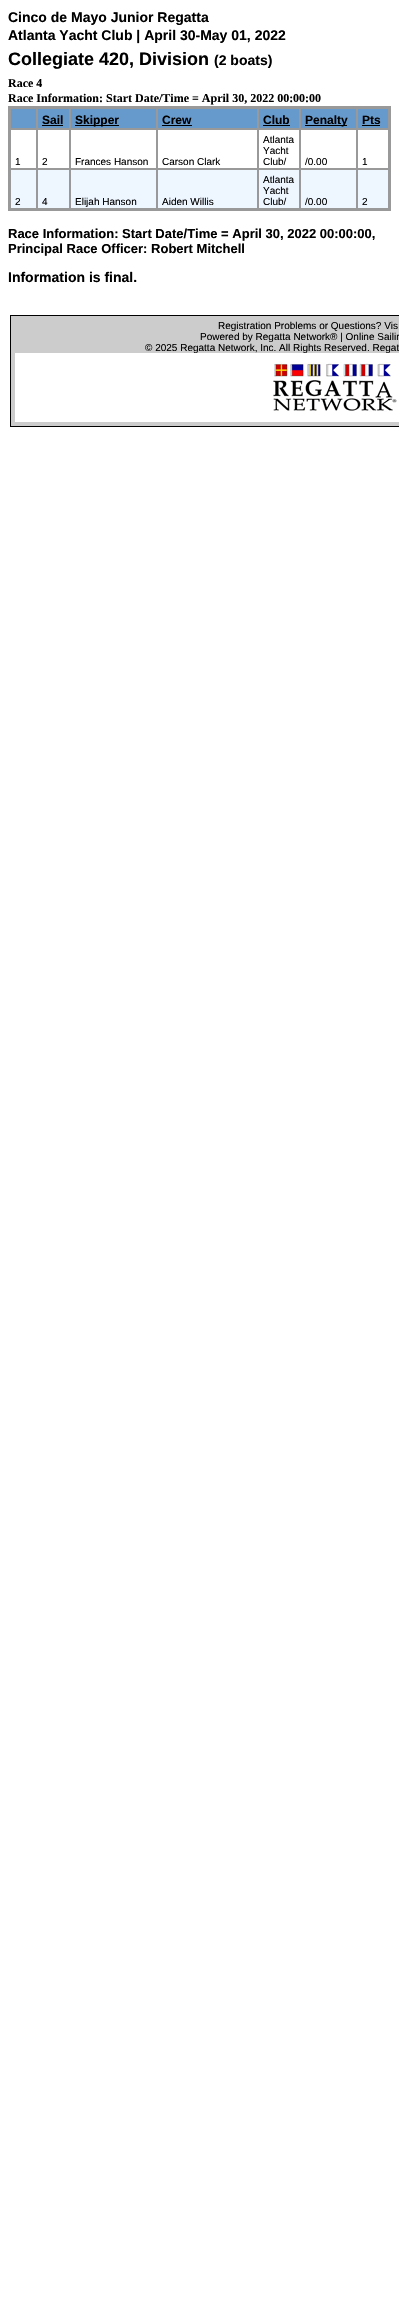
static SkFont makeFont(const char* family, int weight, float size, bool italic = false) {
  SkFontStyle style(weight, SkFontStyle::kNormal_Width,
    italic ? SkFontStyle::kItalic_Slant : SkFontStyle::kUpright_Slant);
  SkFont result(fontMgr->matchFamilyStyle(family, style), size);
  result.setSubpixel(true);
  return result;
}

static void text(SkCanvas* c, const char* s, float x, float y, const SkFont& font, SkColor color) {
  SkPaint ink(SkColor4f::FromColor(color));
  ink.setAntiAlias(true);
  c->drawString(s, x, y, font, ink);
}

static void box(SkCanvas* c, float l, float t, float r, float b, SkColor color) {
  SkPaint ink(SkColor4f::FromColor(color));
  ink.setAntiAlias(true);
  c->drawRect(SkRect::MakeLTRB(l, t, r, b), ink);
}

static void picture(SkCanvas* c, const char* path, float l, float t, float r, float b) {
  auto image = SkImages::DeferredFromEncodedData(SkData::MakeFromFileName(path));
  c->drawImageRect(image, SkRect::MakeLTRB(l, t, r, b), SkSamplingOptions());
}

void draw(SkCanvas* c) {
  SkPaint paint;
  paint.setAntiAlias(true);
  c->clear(0xffffffff);
  SkFont face1 = makeFont("Liberation Sans", 700, 14);
  text(c, "Cinco de Mayo Junior Regatta", 8, 22, face1, 0xff000000);
  text(c, "Atlanta Yacht Club | April 30-May 01, 2022", 8, 40, face1, 0xff000000);
  SkFont face2 = makeFont("Liberation Sans", 700, 18);
  text(c, "Collegiate 420, Division", 8, 65, face2, 0xff000000);
  text(c, "(2 boats)", 214, 65, face1, 0xff000000);
  SkFont face3 = makeFont("Liberation Serif", 700, 12);
  text(c, "Race 4", 8, 87, face3, 0xff000000);
  text(c, "Race Information: Start Date/Time = April 30, 2022 00:00:00", 8, 102, face3, 0xff000000);
  box(c, 8, 106, 391, 211, 0xff999999);
  box(c, 11, 109, 36, 128, 0xff6699cc);
  box(c, 38, 109, 69, 128, 0xff6699cc);
  SkFont face4 = makeFont("Liberation Sans", 700, 12);
  text(c, "Sail", 42, 124, face4, 0xff000000);
  box(c, 42, 125, 63, 126, 0xff000000);
  box(c, 71, 109, 156, 128, 0xff6699cc);
  box(c, 75, 125, 119, 126, 0xff000000);
  text(c, "Skipper", 75, 124, face4, 0xff000000);
  box(c, 158, 109, 257, 128, 0xff6699cc);
  text(c, "Crew", 162, 124, face4, 0xff000000);
  box(c, 162, 125, 192, 126, 0xff000000);
  box(c, 259, 109, 299, 128, 0xff6699cc);
  text(c, "Club", 263, 124, face4, 0xff000000);
  box(c, 263, 125, 290, 126, 0xff000000);
  box(c, 301, 109, 356, 128, 0xff6699cc);
  box(c, 305, 125, 347, 126, 0xff000000);
  text(c, "Penalty", 305, 124, face4, 0xff000000);
  box(c, 358, 109, 388, 128, 0xff6699cc);
  text(c, "Pts", 362, 124, face4, 0xff000000);
  box(c, 362, 125, 380, 126, 0xff000000);
  box(c, 11, 130, 36, 168, 0xffffffff);
  SkFont face5 = makeFont("Liberation Sans", 400, 10);
  text(c, "1", 15, 165, face5, 0xff000000);
  box(c, 38, 130, 69, 168, 0xffffffff);
  text(c, "2", 42, 165, face5, 0xff000000);
  box(c, 71, 130, 156, 168, 0xffffffff);
  text(c, "Frances Hanson", 75, 165, face5, 0xff000000);
  box(c, 158, 130, 257, 168, 0xffffffff);
  text(c, "Carson Clark", 162, 165, face5, 0xff000000);
  box(c, 259, 130, 299, 168, 0xffffffff);
  text(c, "Atlanta", 263, 143, face5, 0xff000000);
  text(c, "Yacht", 263, 154, face5, 0xff000000);
  text(c, "Club/", 263, 165, face5, 0xff000000);
  box(c, 301, 130, 356, 168, 0xffffffff);
  text(c, "/0.00", 305, 165, face5, 0xff000000);
  box(c, 358, 130, 388, 168, 0xffffffff);
  text(c, "1", 362, 165, face5, 0xff000000);
  box(c, 11, 170, 36, 208, 0xffeef6ff);
  text(c, "2", 15, 205, face5, 0xff000000);
  box(c, 38, 170, 69, 208, 0xffeef6ff);
  text(c, "4", 42, 205, face5, 0xff000000);
  box(c, 71, 170, 156, 208, 0xffeef6ff);
  text(c, "Elijah Hanson", 75, 205, face5, 0xff000000);
  box(c, 158, 170, 257, 208, 0xffeef6ff);
  text(c, "Aiden Willis", 162, 205, face5, 0xff000000);
  box(c, 259, 170, 299, 208, 0xffeef6ff);
  text(c, "Atlanta", 263, 183, face5, 0xff000000);
  text(c, "Yacht", 263, 194, face5, 0xff000000);
  text(c, "Club/", 263, 205, face5, 0xff000000);
  box(c, 301, 170, 356, 208, 0xffeef6ff);
  text(c, "/0.00", 305, 205, face5, 0xff000000);
  box(c, 358, 170, 388, 208, 0xffeef6ff);
  text(c, "2", 362, 205, face5, 0xff000000);
  SkFont face6 = makeFont("Liberation Sans", 700, 13);
  text(c, "Race Information: Start Date/Time = April 30, 2022 00:00:00,", 8, 238, face6, 0xff000000);
  text(c, "Principal Race Officer: Robert Mitchell", 8, 253, face6, 0xff000000);
  text(c, "Information is final.", 8, 282, face1, 0xff000000);
  paint.setColor(0xffcccccc);
  c->drawRect(SkRect::MakeLTRB(10.5f, 315.5f, 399.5f, 426.5f), paint);
  paint.setStyle(SkPaint::kStroke_Style);
  paint.setStrokeWidth(1);
  paint.setColor(0xff000000);
  c->drawRect(SkRect::MakeLTRB(10.5f, 315.5f, 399.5f, 426.5f), paint);
  text(c, "Registration Problems or Questions? Vis", 218, 329, face5, 0xff000000);
  text(c, "Powered by Regatta Network® | Online Sailin", 200, 340, face5, 0xff000000);
  box(c, 15, 353, 399, 422, 0xffffffff);
  text(c, "© 2025 Regatta Network, Inc. All Rights Reserved. Regat", 145, 351, face5, 0xff000000);
  picture(c, "img_01.png", 273, 353, 397, 412);
}
